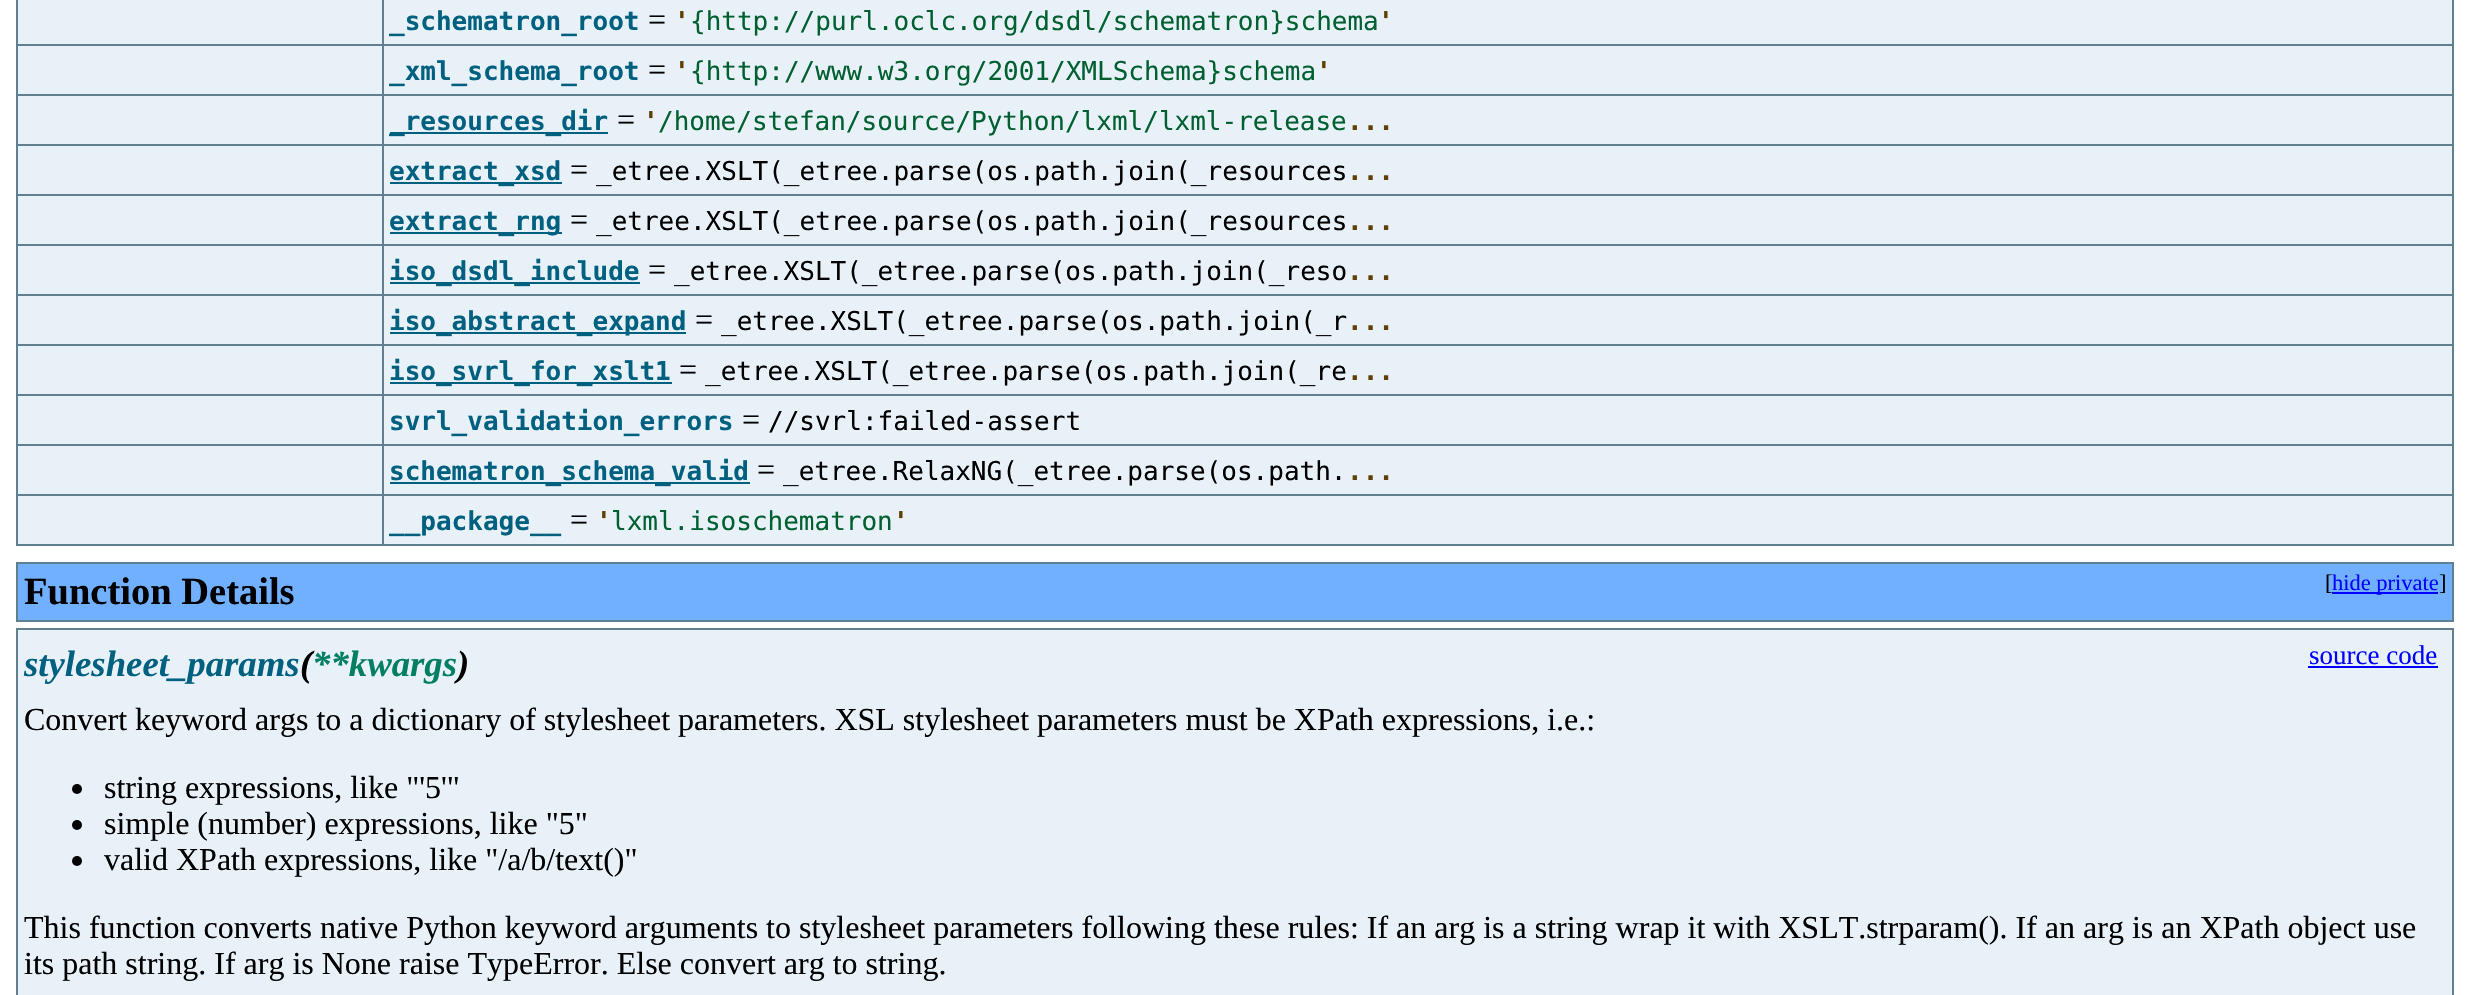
static SkFont makeFont(const char* family, int weight, float size, bool italic = false) {
  SkFontStyle style(weight, SkFontStyle::kNormal_Width,
    italic ? SkFontStyle::kItalic_Slant : SkFontStyle::kUpright_Slant);
  SkFont result(fontMgr->matchFamilyStyle(family, style), size);
  result.setSubpixel(true);
  return result;
}

static void text(SkCanvas* c, const char* s, float x, float y, const SkFont& font, SkColor color) {
  SkPaint ink(SkColor4f::FromColor(color));
  ink.setAntiAlias(true);
  c->drawString(s, x, y, font, ink);
}

static void box(SkCanvas* c, float l, float t, float r, float b, SkColor color) {
  SkPaint ink(SkColor4f::FromColor(color));
  ink.setAntiAlias(true);
  c->drawRect(SkRect::MakeLTRB(l, t, r, b), ink);
}

void draw(SkCanvas* c) {
  SkPaint paint;
  paint.setAntiAlias(true);
  c->clear(0xffffffff);
  box(c, 18, 0, 2452, 544, 0xffe8f0f8);
  box(c, 2452, 0, 2454, 546, 0xff608090);
  box(c, 16, 544, 2454, 546, 0xff608090);
  box(c, 16, 0, 18, 546, 0xff608090);
  box(c, 382, 44, 2454, 46, 0xff608090);
  box(c, 382, 94, 2454, 96, 0xff608090);
  box(c, 382, 144, 2454, 146, 0xff608090);
  box(c, 382, 194, 2454, 196, 0xff608090);
  box(c, 382, 244, 2454, 246, 0xff608090);
  box(c, 382, 294, 2454, 296, 0xff608090);
  box(c, 382, 344, 2454, 346, 0xff608090);
  box(c, 382, 394, 2454, 396, 0xff608090);
  box(c, 382, 444, 2454, 446, 0xff608090);
  box(c, 382, 494, 2454, 496, 0xff608090);
  box(c, 382, 494, 384, 546, 0xff608090);
  box(c, 16, 494, 384, 496, 0xff608090);
  box(c, 382, 444, 384, 496, 0xff608090);
  box(c, 16, 444, 384, 446, 0xff608090);
  box(c, 382, 394, 384, 446, 0xff608090);
  box(c, 16, 394, 384, 396, 0xff608090);
  box(c, 382, 344, 384, 396, 0xff608090);
  box(c, 16, 344, 384, 346, 0xff608090);
  box(c, 382, 294, 384, 346, 0xff608090);
  box(c, 16, 294, 384, 296, 0xff608090);
  box(c, 382, 244, 384, 296, 0xff608090);
  box(c, 16, 244, 384, 246, 0xff608090);
  box(c, 382, 194, 384, 246, 0xff608090);
  box(c, 16, 194, 384, 196, 0xff608090);
  box(c, 382, 144, 384, 196, 0xff608090);
  box(c, 16, 144, 384, 146, 0xff608090);
  box(c, 382, 94, 384, 146, 0xff608090);
  box(c, 16, 94, 384, 96, 0xff608090);
  box(c, 382, 44, 384, 96, 0xff608090);
  box(c, 16, 44, 384, 46, 0xff608090);
  box(c, 382, 0, 384, 46, 0xff608090);
  SkFont face1 = makeFont("DejaVu Sans Mono", 700, 26);
  text(c, "_schematron_root", 389, 30, face1, 0xff006080);
  SkFont face2 = makeFont("Liberation Serif", 400, 32);
  text(c, "=", 648, 30, face2, 0xff000000);
  text(c, "'", 674, 30, face1, 0xff604000);
  SkFont face3 = makeFont("DejaVu Sans Mono", 400, 26);
  text(c, "{http://purl.oclc.org/dsdl/schematron}schema", 690, 30, face3, 0xff006030);
  text(c, "'", 1378, 30, face1, 0xff604000);
  text(c, "_xml_schema_root", 389, 80, face1, 0xff006080);
  text(c, "=", 648, 80, face2, 0xff000000);
  text(c, "'", 674, 80, face1, 0xff604000);
  text(c, "{http://www.w3.org/2001/XMLSchema}schema", 690, 80, face3, 0xff006030);
  text(c, "'", 1316, 80, face1, 0xff604000);
  box(c, 390, 132, 608, 134, 0xff006080);
  text(c, "_resources_dir", 389, 130, face1, 0xff006080);
  text(c, "=", 617, 130, face2, 0xff000000);
  text(c, "'", 643, 130, face1, 0xff604000);
  text(c, "/home/stefan/source/Python/lxml/lxml-release", 658, 130, face3, 0xff006030);
  text(c, "...", 1347, 130, face1, 0xff604000);
  box(c, 390, 182, 562, 184, 0xff006080);
  text(c, "extract_xsd", 389, 180, face1, 0xff006080);
  text(c, "=", 570, 180, face2, 0xff000000);
  text(c, "_etree.XSLT(_etree.parse(os.path.join(_resources", 596, 180, face3, 0xff000000);
  text(c, "...", 1347, 180, face1, 0xff604000);
  box(c, 390, 232, 562, 234, 0xff006080);
  text(c, "extract_rng", 389, 230, face1, 0xff006080);
  text(c, "=", 570, 230, face2, 0xff000000);
  text(c, "_etree.XSLT(_etree.parse(os.path.join(_resources", 596, 230, face3, 0xff000000);
  text(c, "...", 1347, 230, face1, 0xff604000);
  box(c, 390, 282, 640, 284, 0xff006080);
  text(c, "iso_dsdl_include", 389, 280, face1, 0xff006080);
  text(c, "=", 648, 280, face2, 0xff000000);
  text(c, "_etree.XSLT(_etree.parse(os.path.join(_reso", 674, 280, face3, 0xff000000);
  text(c, "...", 1347, 280, face1, 0xff604000);
  box(c, 390, 332, 686, 334, 0xff006080);
  text(c, "iso_abstract_expand", 389, 330, face1, 0xff006080);
  text(c, "=", 695, 330, face2, 0xff000000);
  text(c, "_etree.XSLT(_etree.parse(os.path.join(_r", 721, 330, face3, 0xff000000);
  text(c, "...", 1347, 330, face1, 0xff604000);
  box(c, 390, 382, 672, 384, 0xff006080);
  text(c, "iso_svrl_for_xslt1", 389, 380, face1, 0xff006080);
  text(c, "=", 679, 380, face2, 0xff000000);
  text(c, "_etree.XSLT(_etree.parse(os.path.join(_re", 705, 380, face3, 0xff000000);
  text(c, "...", 1347, 380, face1, 0xff604000);
  text(c, "svrl_validation_errors", 389, 430, face1, 0xff006080);
  text(c, "=", 742, 430, face2, 0xff000000);
  text(c, "//svrl:failed-assert", 768, 430, face3, 0xff000000);
  box(c, 390, 482, 750, 484, 0xff006080);
  text(c, "schematron_schema_valid", 389, 480, face1, 0xff006080);
  text(c, "=", 757, 480, face2, 0xff000000);
  text(c, "_etree.RelaxNG(_etree.parse(os.path.", 783, 480, face3, 0xff000000);
  text(c, "...", 1347, 480, face1, 0xff604000);
  text(c, "__package__", 389, 530, face1, 0xff006080);
  text(c, "=", 570, 530, face2, 0xff000000);
  text(c, "'", 596, 530, face1, 0xff604000);
  text(c, "lxml.isoschematron", 611, 530, face3, 0xff006030);
  text(c, "'", 893, 530, face1, 0xff604000);
  box(c, 16, 562, 2454, 564, 0xff608090);
  box(c, 2452, 562, 2454, 622, 0xff608090);
  box(c, 16, 620, 2454, 622, 0xff608090);
  box(c, 16, 562, 18, 622, 0xff608090);
  box(c, 18, 564, 2452, 620, 0xff70b0ff);
  SkFont face4 = makeFont("Liberation Serif", 700, 38.5f);
  text(c, "Function Details", 24, 604, face4, 0xff000000);
  SkFont face5 = makeFont("Liberation Serif", 400, 22.5f);
  text(c, "[", 2325, 590, face5, 0xff000000);
  box(c, 2332, 592, 2438, 594, 0xff0000ff);
  text(c, "hide private", 2332, 590, face5, 0xff0000ff);
  text(c, "]", 2439, 590, face5, 0xff000000);
  box(c, 18, 630, 2452, 995, 0xffe8f0f8);
  box(c, 16, 628, 2454, 630, 0xff608090);
  box(c, 2452, 628, 2454, 995, 0xff608090);
  box(c, 16, 628, 18, 995, 0xff608090);
  SkFont face6 = makeFont("Liberation Serif", 700, 36.75f, true);
  text(c, "stylesheet_params", 24, 676, face6, 0xff006080);
  text(c, "(", 300, 676, face6, 0xff000000);
  text(c, "**kwargs", 312, 676, face6, 0xff008060);
  text(c, ")", 457, 676, face6, 0xff000000);
  SkFont face7 = makeFont("Liberation Serif", 400, 27);
  text(c, "source code", 2309, 664, face7, 0xff0000ff);
  box(c, 2308, 666, 2438, 668, 0xff0000ff);
  text(c, "Convert keyword args to a dictionary of stylesheet parameters. XSL stylesheet parameters must be XPath expressions, i.e.:", 24, 730, face2, 0xff000000);
  paint.setColor(0xff000000);
  c->drawCircle(77, 789, 5, paint);
  text(c, "string expressions, like \"'5'\"", 104, 798, face2, 0xff000000);
  c->drawCircle(77, 825, 5, paint);
  text(c, "simple (number) expressions, like \"5\"", 104, 834, face2, 0xff000000);
  c->drawCircle(77, 861, 5, paint);
  text(c, "valid XPath expressions, like \"/a/b/text()\"", 104, 870, face2, 0xff000000);
  text(c, "This function converts native Python keyword arguments to stylesheet parameters following these rules: If an arg is a string wrap it with XSLT.strparam(). If an arg is an XPath object use", 24, 938, face2, 0xff000000);
  text(c, "its path string. If arg is None raise TypeError. Else convert arg to string.", 24, 974, face2, 0xff000000);
}
